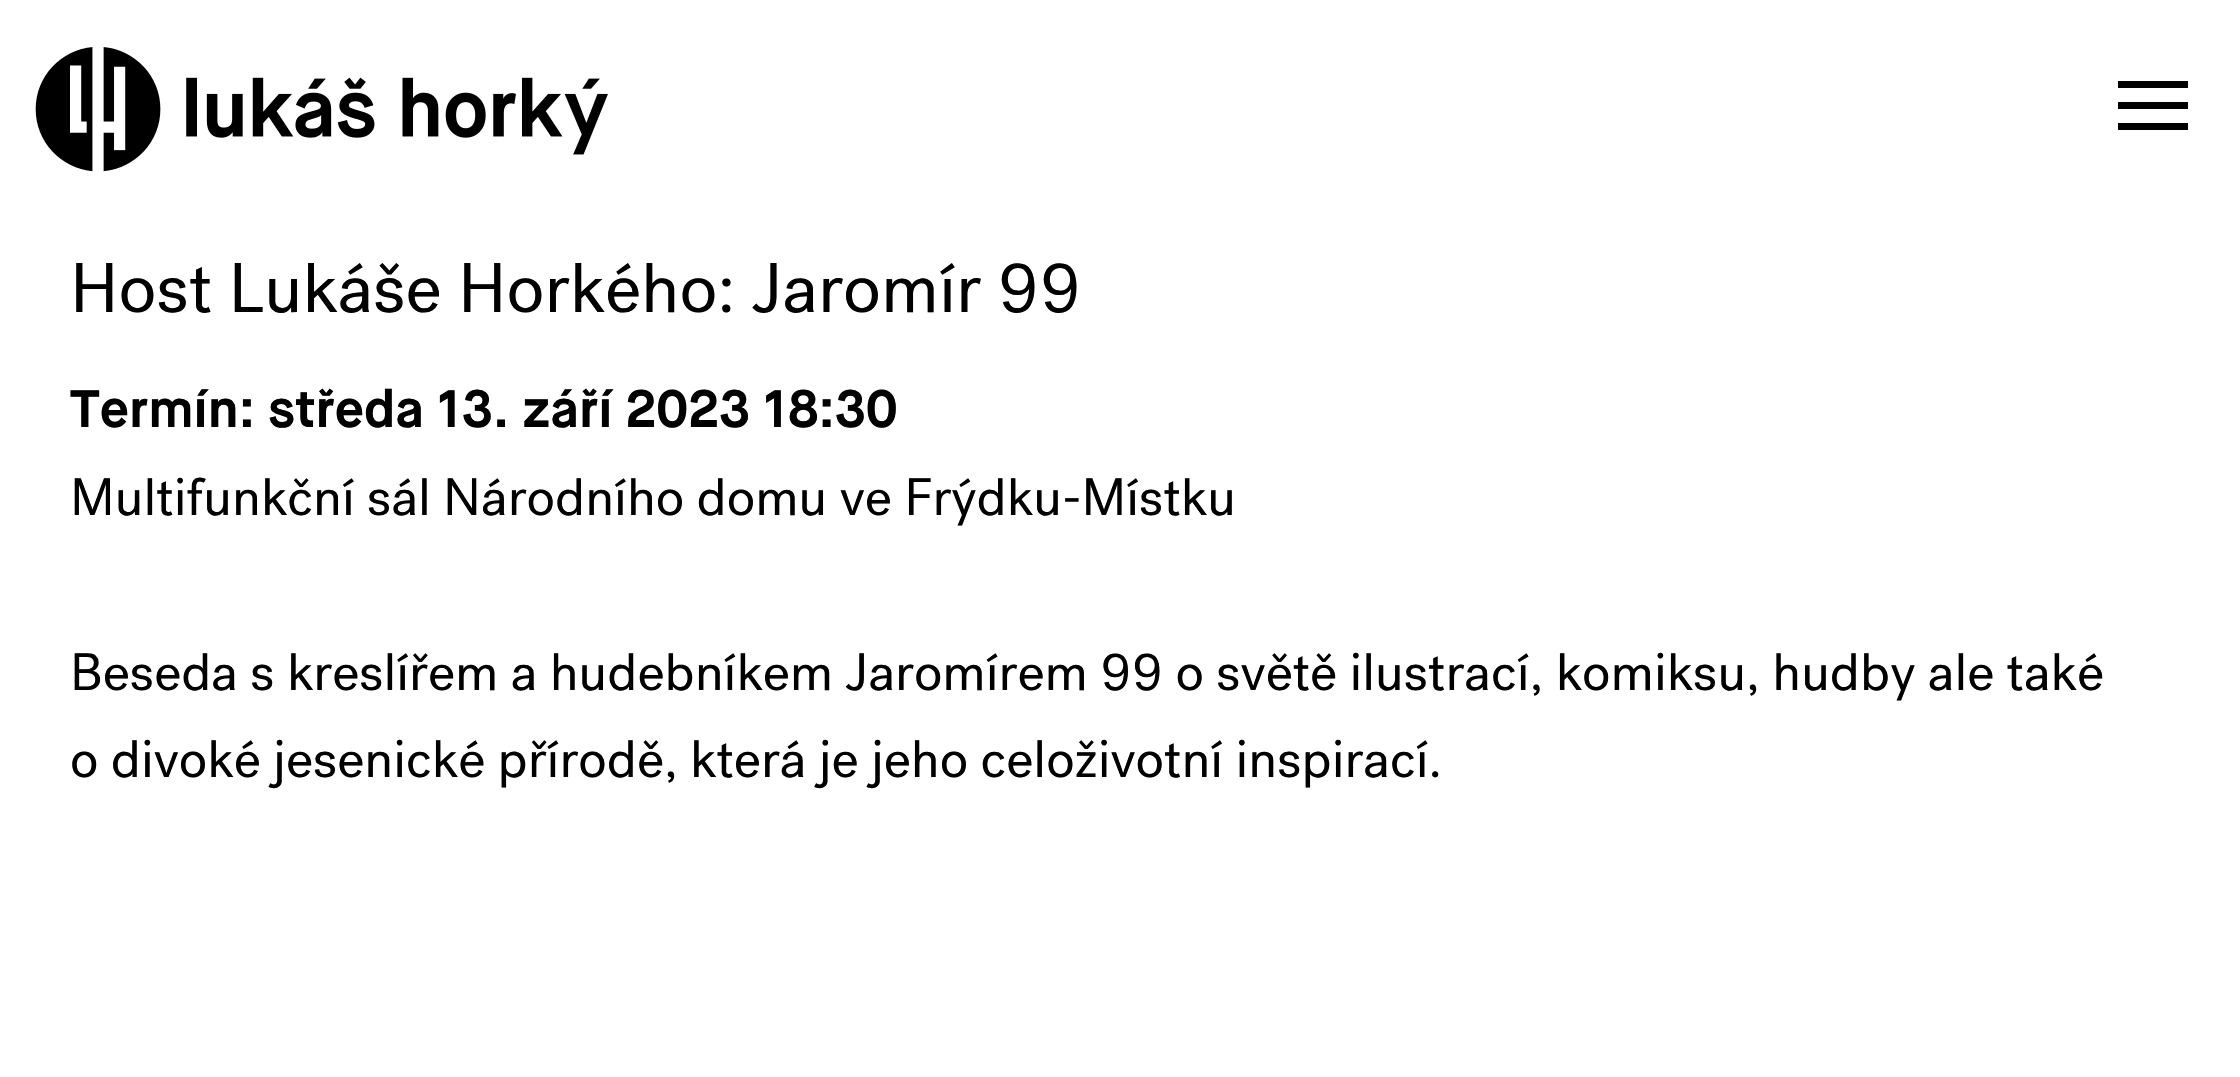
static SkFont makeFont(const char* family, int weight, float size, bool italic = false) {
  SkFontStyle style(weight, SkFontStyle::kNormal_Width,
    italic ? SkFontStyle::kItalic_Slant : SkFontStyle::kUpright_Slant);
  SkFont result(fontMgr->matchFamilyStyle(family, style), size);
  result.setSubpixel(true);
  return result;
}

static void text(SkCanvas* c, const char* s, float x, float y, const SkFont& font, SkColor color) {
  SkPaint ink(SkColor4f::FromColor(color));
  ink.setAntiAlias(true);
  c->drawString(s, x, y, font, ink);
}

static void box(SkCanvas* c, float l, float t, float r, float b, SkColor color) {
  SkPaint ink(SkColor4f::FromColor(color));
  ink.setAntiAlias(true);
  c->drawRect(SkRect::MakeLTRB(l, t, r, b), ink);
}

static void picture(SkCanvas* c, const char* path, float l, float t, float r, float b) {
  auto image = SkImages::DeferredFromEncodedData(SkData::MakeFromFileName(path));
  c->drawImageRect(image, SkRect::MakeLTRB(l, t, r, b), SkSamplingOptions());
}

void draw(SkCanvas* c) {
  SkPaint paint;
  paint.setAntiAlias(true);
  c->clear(0xffffffff);
  picture(c, "img_01.png", 35, 47, 608, 172);
  box(c, 2118, 102, 2188, 109, 0xff000000);
  box(c, 2118, 81, 2188, 88, 0xff000000);
  box(c, 2118, 123, 2188, 130, 0xff000000);
  SkFont face1 = makeFont("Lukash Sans", 400, 70);
  text(c, "Host Lukáše Horkého: Jaromír 99", 70, 312, face1, 0xff000000);
  SkFont face2 = makeFont("Lukash Sans", 700, 52.5f);
  text(c, "Termín: středa 13. září 2023 18:30", 70, 427, face2, 0xff000000);
  SkFont face3 = makeFont("Lukash Sans", 400, 52.5f);
  text(c, "Multifunkční sál Národního domu ve Frýdku-Místku", 70, 515, face3, 0xff000000);
  text(c, "Beseda s kreslířem a hudebníkem Jaromírem 99 o světě ilustrací, komiksu, hudby ale také", 70, 690, face3, 0xff000000);
  text(c, "o divoké jesenické přírodě, která je jeho celoživotní inspirací.", 70, 777, face3, 0xff000000);
}
